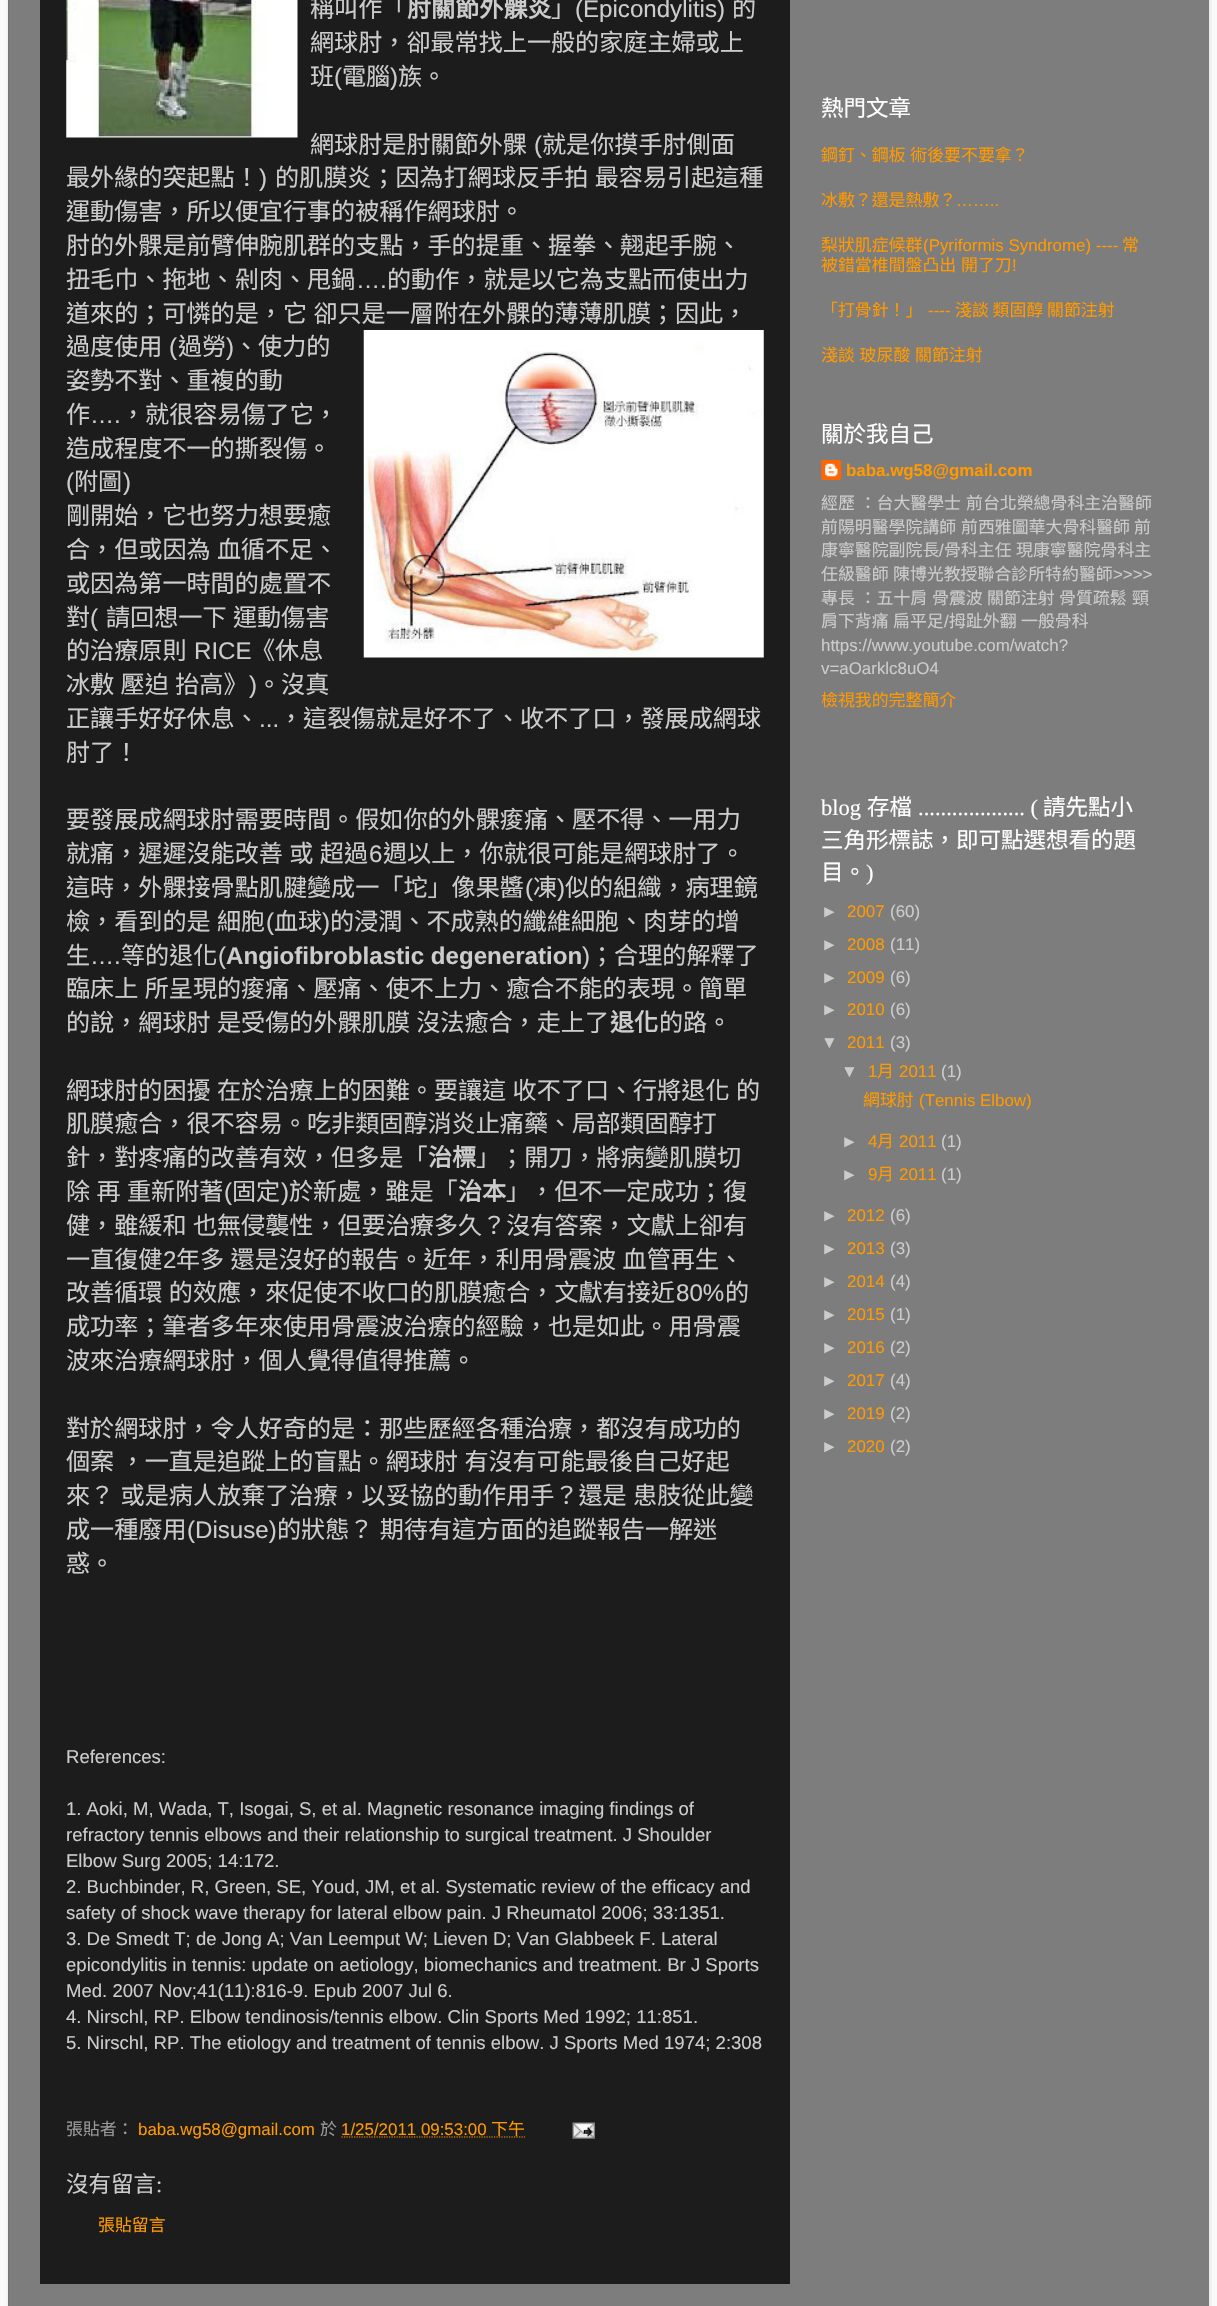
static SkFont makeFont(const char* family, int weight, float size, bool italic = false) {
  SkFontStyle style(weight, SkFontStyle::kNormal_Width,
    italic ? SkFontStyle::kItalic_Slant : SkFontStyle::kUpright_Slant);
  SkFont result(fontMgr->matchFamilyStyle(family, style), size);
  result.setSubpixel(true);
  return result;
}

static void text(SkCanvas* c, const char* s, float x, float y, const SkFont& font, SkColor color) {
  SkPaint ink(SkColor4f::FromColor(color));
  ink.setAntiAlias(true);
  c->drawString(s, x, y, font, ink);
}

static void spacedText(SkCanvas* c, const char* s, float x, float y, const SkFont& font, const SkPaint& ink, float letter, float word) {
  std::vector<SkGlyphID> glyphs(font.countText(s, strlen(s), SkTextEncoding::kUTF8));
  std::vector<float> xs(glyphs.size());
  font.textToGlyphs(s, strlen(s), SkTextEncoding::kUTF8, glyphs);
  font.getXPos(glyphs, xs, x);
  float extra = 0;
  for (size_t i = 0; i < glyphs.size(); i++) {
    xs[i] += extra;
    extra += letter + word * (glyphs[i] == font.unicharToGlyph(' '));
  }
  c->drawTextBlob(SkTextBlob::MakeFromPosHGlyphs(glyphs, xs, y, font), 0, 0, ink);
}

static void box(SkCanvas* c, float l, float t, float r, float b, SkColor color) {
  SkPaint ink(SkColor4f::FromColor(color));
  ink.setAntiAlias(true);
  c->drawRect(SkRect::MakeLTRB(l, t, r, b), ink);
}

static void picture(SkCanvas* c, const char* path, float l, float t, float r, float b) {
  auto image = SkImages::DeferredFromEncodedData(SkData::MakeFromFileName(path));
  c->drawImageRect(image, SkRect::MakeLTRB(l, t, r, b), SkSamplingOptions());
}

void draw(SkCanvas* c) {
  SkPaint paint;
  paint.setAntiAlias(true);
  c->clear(0xfffafafa);
  c->save();
  c->clipPath(SkPathBuilder(SkPathFillType::kEvenOdd).moveTo(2, 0).lineTo(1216, 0).lineTo(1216, 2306).lineTo(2, 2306).close().moveTo(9, -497).lineTo(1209, -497).lineTo(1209, 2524).lineTo(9, 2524).close().detach(), true);
  paint.setColor(0x26000000);
  paint.setMaskFilter(SkMaskFilter::MakeBlur(kNormal_SkBlurStyle, 2));
  c->drawRect(SkRect::MakeLTRB(9, -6, 1209, 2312), paint);
  paint.setMaskFilter(nullptr);
  c->restore();
  box(c, 8, 0, 1209, 2306, 0x80000000);
  box(c, 40, 0, 790, 2284, 0xff1c1c1c);
  picture(c, "img_01.png", 66, 0, 298, 138);
  SkFont face1 = makeFont("Noto Sans CJK TC", 400, 24.1f);
  text(c, "稱叫作「", 310, 17, face1, 0xffcccccc);
  SkFont face2 = makeFont("Noto Sans CJK TC", 700, 24.1f);
  text(c, "肘關節外髁炎", 407, 17, face2, 0xffcccccc);
  text(c, "」", 551, 17, face1, 0xffcccccc);
  SkFont face3 = makeFont("Liberation Sans", 400, 24.1f);
  text(c, "(Epicondylitis)", 575, 17, face3, 0xffcccccc);
  text(c, "的", 732, 17, face1, 0xffcccccc);
  text(c, "網球肘，卻最常找上一般的家庭主婦或上", 310, 51, face1, 0xffcccccc);
  text(c, "班", 310, 85, face1, 0xffcccccc);
  text(c, "(", 334, 85, face3, 0xffcccccc);
  text(c, "電腦", 342, 85, face1, 0xffcccccc);
  text(c, ")", 390, 85, face3, 0xffcccccc);
  text(c, "族。", 398, 85, face1, 0xffcccccc);
  text(c, "網球肘是肘關節外髁", 310, 153, face1, 0xffcccccc);
  text(c, "(", 534, 153, face3, 0xffcccccc);
  text(c, "就是你摸手肘側面", 542, 153, face1, 0xffcccccc);
  text(c, "最外緣的突起點！", 66, 186, face1, 0xffcccccc);
  text(c, ")", 259, 186, face3, 0xffcccccc);
  paint.setColor(0xffcccccc);
  spacedText(c, "的肌膜炎；因為打網球反手拍 最容易引起這種", 275, 186, face1, paint, 0, 1);
  text(c, "運動傷害，所以便宜行事的被稱作網球肘。", 66, 220, face1, 0xffcccccc);
  text(c, "肘的外髁是前臂伸腕肌群的支點，手的提重、握拳、翹起手腕、", 66, 254, face1, 0xffcccccc);
  text(c, "扭毛巾、拖地、剁肉、甩鍋", 66, 288, face1, 0xffcccccc);
  text(c, "….", 356, 288, face3, 0xffcccccc);
  text(c, "的動作，就是以它為支點而使出力", 387, 288, face1, 0xffcccccc);
  spacedText(c, "道來的；可憐的是，它 卻只是一層附在外髁的薄薄肌膜；因此，", 66, 322, face1, paint, 0, 1);
  text(c, "過度使用", 66, 355, face1, 0xffcccccc);
  text(c, "(", 169, 355, face3, 0xffcccccc);
  text(c, "過勞", 178, 355, face1, 0xffcccccc);
  text(c, ")", 226, 355, face3, 0xffcccccc);
  text(c, "、使力的", 234, 355, face1, 0xffcccccc);
  picture(c, "img_02.png", 363, 330, 764, 658);
  text(c, "姿勢不對、重複的動", 66, 389, face1, 0xffcccccc);
  text(c, "作", 66, 423, face1, 0xffcccccc);
  text(c, "….", 90, 423, face3, 0xffcccccc);
  text(c, "，就很容易傷了它，", 121, 423, face1, 0xffcccccc);
  text(c, "造成程度不一的撕裂傷。", 66, 457, face1, 0xffcccccc);
  text(c, "(", 66, 490, face3, 0xffcccccc);
  text(c, "附圖", 74, 490, face1, 0xffcccccc);
  text(c, ")", 123, 490, face3, 0xffcccccc);
  text(c, "剛開始，它也努力想要癒", 66, 524, face1, 0xffcccccc);
  spacedText(c, "合，但或因為 血循不足、", 66, 558, face1, paint, 0, 1);
  text(c, "或因為第一時間的處置不", 66, 592, face1, 0xffcccccc);
  text(c, "對", 66, 626, face1, 0xffcccccc);
  text(c, "(", 90, 626, face3, 0xffcccccc);
  spacedText(c, "請回想一下 運動傷害", 106, 626, face1, paint, 0, 1);
  text(c, "的治療原則", 66, 659, face1, 0xffcccccc);
  text(c, "RICE", 194, 659, face3, 0xffcccccc);
  text(c, "《休息", 251, 659, face1, 0xffcccccc);
  spacedText(c, "冰敷 壓迫 抬高》", 66, 693, face1, paint, 0, 1);
  text(c, ")", 249, 693, face3, 0xffcccccc);
  text(c, "。沒真", 257, 693, face1, 0xffcccccc);
  text(c, "正讓手好好休息、", 66, 727, face1, 0xffcccccc);
  text(c, "...", 259, 727, face3, 0xffcccccc);
  text(c, "，這裂傷就是好不了、收不了口，發展成網球", 279, 727, face1, 0xffcccccc);
  text(c, "肘了！", 66, 761, face1, 0xffcccccc);
  text(c, "要發展成網球肘需要時間。假如你的外髁痠痛、壓不得、一用力", 66, 828, face1, 0xffcccccc);
  spacedText(c, "就痛，遲遲沒能改善 或 超過", 66, 862, face1, paint, 0, 1);
  text(c, "6", 369, 862, face3, 0xffcccccc);
  text(c, "週以上，你就很可能是網球肘了。", 383, 862, face1, 0xffcccccc);
  text(c, "這時，外髁接骨點肌腱變成一「坨」像果醬", 66, 896, face1, 0xffcccccc);
  text(c, "(", 525, 896, face3, 0xffcccccc);
  text(c, "凍", 533, 896, face1, 0xffcccccc);
  text(c, ")", 557, 896, face3, 0xffcccccc);
  text(c, "似的組織，病理鏡", 565, 896, face1, 0xffcccccc);
  spacedText(c, "檢，看到的是 細胞", 66, 930, face1, paint, 0, 1);
  text(c, "(", 266, 930, face3, 0xffcccccc);
  text(c, "血球", 274, 930, face1, 0xffcccccc);
  text(c, ")", 322, 930, face3, 0xffcccccc);
  text(c, "的浸潤、不成熟的纖維細胞、肉芽的增", 330, 930, face1, 0xffcccccc);
  text(c, "生", 66, 964, face1, 0xffcccccc);
  text(c, "….", 90, 964, face3, 0xffcccccc);
  text(c, "等的退化", 121, 964, face1, 0xffcccccc);
  text(c, "(", 218, 964, face3, 0xffcccccc);
  SkFont face4 = makeFont("Liberation Sans", 700, 24.1f);
  text(c, "Angiofibroblastic degeneration", 226, 964, face4, 0xffcccccc);
  text(c, ")", 582, 964, face3, 0xffcccccc);
  text(c, "；合理的解釋了", 590, 964, face1, 0xffcccccc);
  spacedText(c, "臨床上 所呈現的痠痛、壓痛、使不上力、癒合不能的表現。簡單", 66, 997, face1, paint, 0, 1);
  spacedText(c, "的說，網球肘 是受傷的外髁肌膜 沒法癒合，走上了", 66, 1031, face1, paint, 0, 1);
  text(c, "退化", 610, 1031, face2, 0xffcccccc);
  text(c, "的路。", 659, 1031, face1, 0xffcccccc);
  spacedText(c, "網球肘的困擾 在於治療上的困難。要讓這 收不了口、行將退化 的", 66, 1099, face1, paint, 0, 1);
  text(c, "肌膜癒合，很不容易。吃非類固醇消炎止痛藥、局部類固醇打", 66, 1132, face1, 0xffcccccc);
  text(c, "針，對疼痛的改善有效，但多是「", 66, 1166, face1, 0xffcccccc);
  text(c, "治標", 428, 1166, face2, 0xffcccccc);
  text(c, "」；開刀，將病變肌膜切", 476, 1166, face1, 0xffcccccc);
  spacedText(c, "除 再 重新附著", 66, 1200, face1, paint, 0, 1);
  text(c, "(", 224, 1200, face3, 0xffcccccc);
  text(c, "固定", 232, 1200, face1, 0xffcccccc);
  text(c, ")", 281, 1200, face3, 0xffcccccc);
  text(c, "於新處，雖是「", 289, 1200, face1, 0xffcccccc);
  text(c, "治本", 458, 1200, face2, 0xffcccccc);
  text(c, "」，但不一定成功；復", 506, 1200, face1, 0xffcccccc);
  spacedText(c, "健，雖緩和 也無侵襲性，但要治療多久？沒有答案，文獻上卻有", 66, 1234, face1, paint, 0, 1);
  text(c, "一直復健", 66, 1268, face1, 0xffcccccc);
  text(c, "2", 163, 1268, face3, 0xffcccccc);
  spacedText(c, "年多 還是沒好的報告。近年，利用骨震波 血管再生、", 176, 1268, face1, paint, 0, 1);
  spacedText(c, "改善循環 的效應，來促使不收口的肌膜癒合，文獻有接近", 66, 1301, face1, paint, 0, 1);
  text(c, "80%", 676, 1301, face3, 0xffcccccc);
  text(c, "的", 725, 1301, face1, 0xffcccccc);
  text(c, "成功率；筆者多年來使用骨震波治療的經驗，也是如此。用骨震", 66, 1335, face1, 0xffcccccc);
  text(c, "波來治療網球肘，個人覺得值得推薦。", 66, 1369, face1, 0xffcccccc);
  text(c, "對於網球肘，令人好奇的是：那些歷經各種治療，都沒有成功的", 66, 1437, face1, 0xffcccccc);
  spacedText(c, "個案 ，一直是追蹤上的盲點。網球肘 有沒有可能最後自己好起", 66, 1470, face1, paint, 0, 1);
  spacedText(c, "來？ 或是病人放棄了治療，以妥協的動作用手？還是 患肢從此變", 66, 1504, face1, paint, 0, 1);
  text(c, "成一種廢用", 66, 1538, face1, 0xffcccccc);
  text(c, "(Disuse)", 187, 1538, face3, 0xffcccccc);
  spacedText(c, "的狀態？ 期待有這方面的追蹤報告一解迷", 277, 1538, face1, paint, 0, 1);
  text(c, "惑。", 66, 1572, face1, 0xffcccccc);
  SkFont face5 = makeFont("Liberation Sans", 400, 18.55f);
  text(c, "References:", 66, 1763, face5, 0xffcccccc);
  text(c, "1. Aoki, M, Wada, T, Isogai, S, et al. Magnetic resonance imaging findings of", 66, 1815, face5, 0xffcccccc);
  text(c, "refractory tennis elbows and their relationship to surgical treatment. J Shoulder", 66, 1841, face5, 0xffcccccc);
  text(c, "Elbow Surg 2005; 14:172.", 66, 1867, face5, 0xffcccccc);
  text(c, "2. Buchbinder, R, Green, SE, Youd, JM, et al. Systematic review of the efficacy and", 66, 1893, face5, 0xffcccccc);
  text(c, "safety of shock wave therapy for lateral elbow pain. J Rheumatol 2006; 33:1351.", 66, 1919, face5, 0xffcccccc);
  text(c, "3. De Smedt T; de Jong A; Van Leemput W; Lieven D; Van Glabbeek F. Lateral", 66, 1945, face5, 0xffcccccc);
  text(c, "epicondylitis in tennis: update on aetiology, biomechanics and treatment. Br J Sports", 66, 1971, face5, 0xffcccccc);
  text(c, "Med. 2007 Nov;41(11):816-9. Epub 2007 Jul 6.", 66, 1997, face5, 0xffcccccc);
  text(c, "4. Nirschl, RP. Elbow tendinosis/tennis elbow. Clin Sports Med 1992; 11:851.", 66, 2023, face5, 0xffcccccc);
  text(c, "5. Nirschl, RP. The etiology and treatment of tennis elbow. J Sports Med 1974; 2:308", 66, 2049, face5, 0xffcccccc);
  SkFont face6 = makeFont("Noto Sans CJK TC", 400, 16.9f);
  text(c, "張貼者：", 66, 2135, face6, 0xff999999);
  SkFont face7 = makeFont("Liberation Sans", 400, 16.9f);
  text(c, "baba.wg58@gmail.com", 138, 2135, face7, 0xffff9900);
  text(c, "於", 320, 2135, face6, 0xff999999);
  text(c, "1/25/2011 09:53:00", 341, 2135, face7, 0xffff9900);
  paint.setStyle(SkPaint::kStroke_Style);
  paint.setStrokeWidth(1.2f);
  paint.setColor(0xffff9900);
  paint.setPathEffect(SkDashPathEffect::Make({{1.25f, 1.25f}}, 0));
  c->drawPath(SkPathBuilder().moveTo(341.5f, 2137).lineTo(525, 2137).detach(), paint);
  paint.setPathEffect(nullptr);
  text(c, "下午", 491, 2135, face6, 0xffff9900);
  picture(c, "img_03.png", 572, 2122, 595, 2139);
  SkFont face8 = makeFont("Noto Sans CJK TC", 400, 22.5f);
  text(c, "沒有留言", 66, 2192, face8, 0xffcccccc);
  SkFont face9 = makeFont("Liberation Serif", 400, 22.5f);
  text(c, ":", 156, 2192, face9, 0xffcccccc);
  text(c, "張貼留言", 98, 2231, face6, 0xffff9900);
  text(c, "熱門文章", 821, 116, face8, 0xffffffff);
  paint.setStyle(SkPaint::kFill_Style);
  spacedText(c, "鋼釘、鋼板 術後要不要拿？", 821, 161, face6, paint, 0, 1);
  text(c, "冰敷？還是熱敷？", 821, 206, face6, 0xffff9900);
  text(c, "……..", 956, 206, face7, 0xffff9900);
  text(c, "梨狀肌症候群", 821, 251, face6, 0xffff9900);
  text(c, "(Pyriformis Syndrome) ----", 923, 251, face7, 0xffff9900);
  text(c, "常", 1122, 251, face6, 0xffff9900);
  spacedText(c, "被錯當椎間盤凸出 開了刀", 821, 271, face6, paint, 0, 1);
  text(c, "!", 1012, 271, face7, 0xffff9900);
  text(c, "「打骨針！」", 821, 316, face6, 0xffff9900);
  text(c, "----", 928, 316, face7, 0xffff9900);
  text(c, "淺談 類固醇 關節注射", 955, 316, face6, 0xffff9900);
  spacedText(c, "淺談 玻尿酸 關節注射", 821, 361, face6, paint, 0, 1);
  text(c, "關於我自己", 821, 442, face8, 0xffffffff);
  picture(c, "img_04.png", 821, 460, 842, 480);
  SkFont face10 = makeFont("Liberation Sans", 700, 16.9f);
  text(c, "baba.wg58@gmail.com", 846, 476, face10, 0xffff9900);
  paint.setColor(0xffcccccc);
  spacedText(c, "經歷 ：台大醫學士", 821, 509, face6, paint, 0, 1);
  text(c, "前台北榮總骨科主治醫師", 966, 509, face6, 0xffcccccc);
  text(c, "前陽明醫學院講師", 821, 533, face6, 0xffcccccc);
  text(c, "前西雅圖華大骨科醫師", 961, 533, face6, 0xffcccccc);
  text(c, "前", 1134, 533, face6, 0xffcccccc);
  text(c, "康寧醫院副院長", 821, 556, face6, 0xffcccccc);
  text(c, "/", 939, 556, face7, 0xffcccccc);
  text(c, "骨科主任", 944, 556, face6, 0xffcccccc);
  text(c, "現康寧醫院骨科主", 1016, 556, face6, 0xffcccccc);
  text(c, "任級醫師", 821, 580, face6, 0xffcccccc);
  text(c, "陳博光教授聯合診所特約醫師", 893, 580, face6, 0xffcccccc);
  text(c, ">>>>", 1113, 580, face7, 0xffcccccc);
  spacedText(c, "專長 ：五十肩", 821, 604, face6, paint, 0, 1);
  text(c, "骨震波", 932, 604, face6, 0xffcccccc);
  text(c, "關節注射", 987, 604, face6, 0xffcccccc);
  text(c, "骨質疏鬆", 1059, 604, face6, 0xffcccccc);
  text(c, "頸", 1132, 604, face6, 0xffcccccc);
  text(c, "肩下背痛", 821, 627, face6, 0xffcccccc);
  text(c, "扁平足", 893, 627, face6, 0xffcccccc);
  text(c, "/", 944, 627, face7, 0xffcccccc);
  text(c, "拇趾外翻", 949, 627, face6, 0xffcccccc);
  text(c, "一般骨科", 1021, 627, face6, 0xffcccccc);
  text(c, "https://www.youtube.com/watch?", 821, 651, face7, 0xffcccccc);
  text(c, "v=aOarklc8uO4", 821, 674, face7, 0xffcccccc);
  text(c, "檢視我的完整簡介", 821, 706, face6, 0xffff9900);
  text(c, "blog", 821, 815, face9, 0xffffffff);
  text(c, "存檔", 867, 815, face8, 0xffffffff);
  text(c, "................... (", 918, 815, face9, 0xffffffff);
  text(c, "請先點小", 1043, 815, face8, 0xffffffff);
  text(c, "三角形標誌，即可點選想看的題", 821, 848, face8, 0xffffffff);
  text(c, "目。", 821, 880, face8, 0xffffffff);
  text(c, ")", 866, 880, face9, 0xffffffff);
  text(c, "►", 821, 917, face7, 0xffcccccc);
  text(c, "2007", 847, 917, face7, 0xffff9900);
  text(c, "(60)", 890, 917, face7, 0xffcccccc);
  text(c, "►", 821, 950, face7, 0xffcccccc);
  text(c, "2008", 847, 950, face7, 0xffff9900);
  text(c, "(11)", 890, 950, face7, 0xffcccccc);
  text(c, "►", 821, 983, face7, 0xffcccccc);
  text(c, "2009", 847, 983, face7, 0xffff9900);
  text(c, "(6)", 890, 983, face7, 0xffcccccc);
  text(c, "►", 821, 1015, face7, 0xffcccccc);
  text(c, "2010", 847, 1015, face7, 0xffff9900);
  text(c, "(6)", 890, 1015, face7, 0xffcccccc);
  text(c, "▼", 821, 1048, face7, 0xffcccccc);
  text(c, "2011", 847, 1048, face7, 0xffff9900);
  text(c, "(3)", 890, 1048, face7, 0xffcccccc);
  text(c, "▼", 841, 1077, face7, 0xffcccccc);
  text(c, "1", 868, 1077, face7, 0xffff9900);
  text(c, "月", 877, 1077, face6, 0xffff9900);
  text(c, "2011", 899, 1077, face7, 0xffff9900);
  text(c, "(1)", 941, 1077, face7, 0xffcccccc);
  text(c, "網球肘", 863, 1106, face6, 0xffff9900);
  text(c, "(Tennis Elbow)", 919, 1106, face7, 0xffff9900);
  text(c, "►", 841, 1147, face7, 0xffcccccc);
  text(c, "4", 868, 1147, face7, 0xffff9900);
  text(c, "月", 877, 1147, face6, 0xffff9900);
  text(c, "2011", 899, 1147, face7, 0xffff9900);
  text(c, "(1)", 941, 1147, face7, 0xffcccccc);
  text(c, "►", 841, 1180, face7, 0xffcccccc);
  text(c, "9", 868, 1180, face7, 0xffff9900);
  text(c, "月", 877, 1180, face6, 0xffff9900);
  text(c, "2011", 899, 1180, face7, 0xffff9900);
  text(c, "(1)", 941, 1180, face7, 0xffcccccc);
  text(c, "►", 821, 1221, face7, 0xffcccccc);
  text(c, "2012", 847, 1221, face7, 0xffff9900);
  text(c, "(6)", 890, 1221, face7, 0xffcccccc);
  text(c, "►", 821, 1254, face7, 0xffcccccc);
  text(c, "2013", 847, 1254, face7, 0xffff9900);
  text(c, "(3)", 890, 1254, face7, 0xffcccccc);
  text(c, "►", 821, 1287, face7, 0xffcccccc);
  text(c, "2014", 847, 1287, face7, 0xffff9900);
  text(c, "(4)", 890, 1287, face7, 0xffcccccc);
  text(c, "►", 821, 1320, face7, 0xffcccccc);
  text(c, "2015", 847, 1320, face7, 0xffff9900);
  text(c, "(1)", 890, 1320, face7, 0xffcccccc);
  text(c, "►", 821, 1353, face7, 0xffcccccc);
  text(c, "2016", 847, 1353, face7, 0xffff9900);
  text(c, "(2)", 890, 1353, face7, 0xffcccccc);
  text(c, "►", 821, 1386, face7, 0xffcccccc);
  text(c, "2017", 847, 1386, face7, 0xffff9900);
  text(c, "(4)", 890, 1386, face7, 0xffcccccc);
  text(c, "►", 821, 1419, face7, 0xffcccccc);
  text(c, "2019", 847, 1419, face7, 0xffff9900);
  text(c, "(2)", 890, 1419, face7, 0xffcccccc);
  text(c, "►", 821, 1452, face7, 0xffcccccc);
  text(c, "2020", 847, 1452, face7, 0xffff9900);
  text(c, "(2)", 890, 1452, face7, 0xffcccccc);
}
